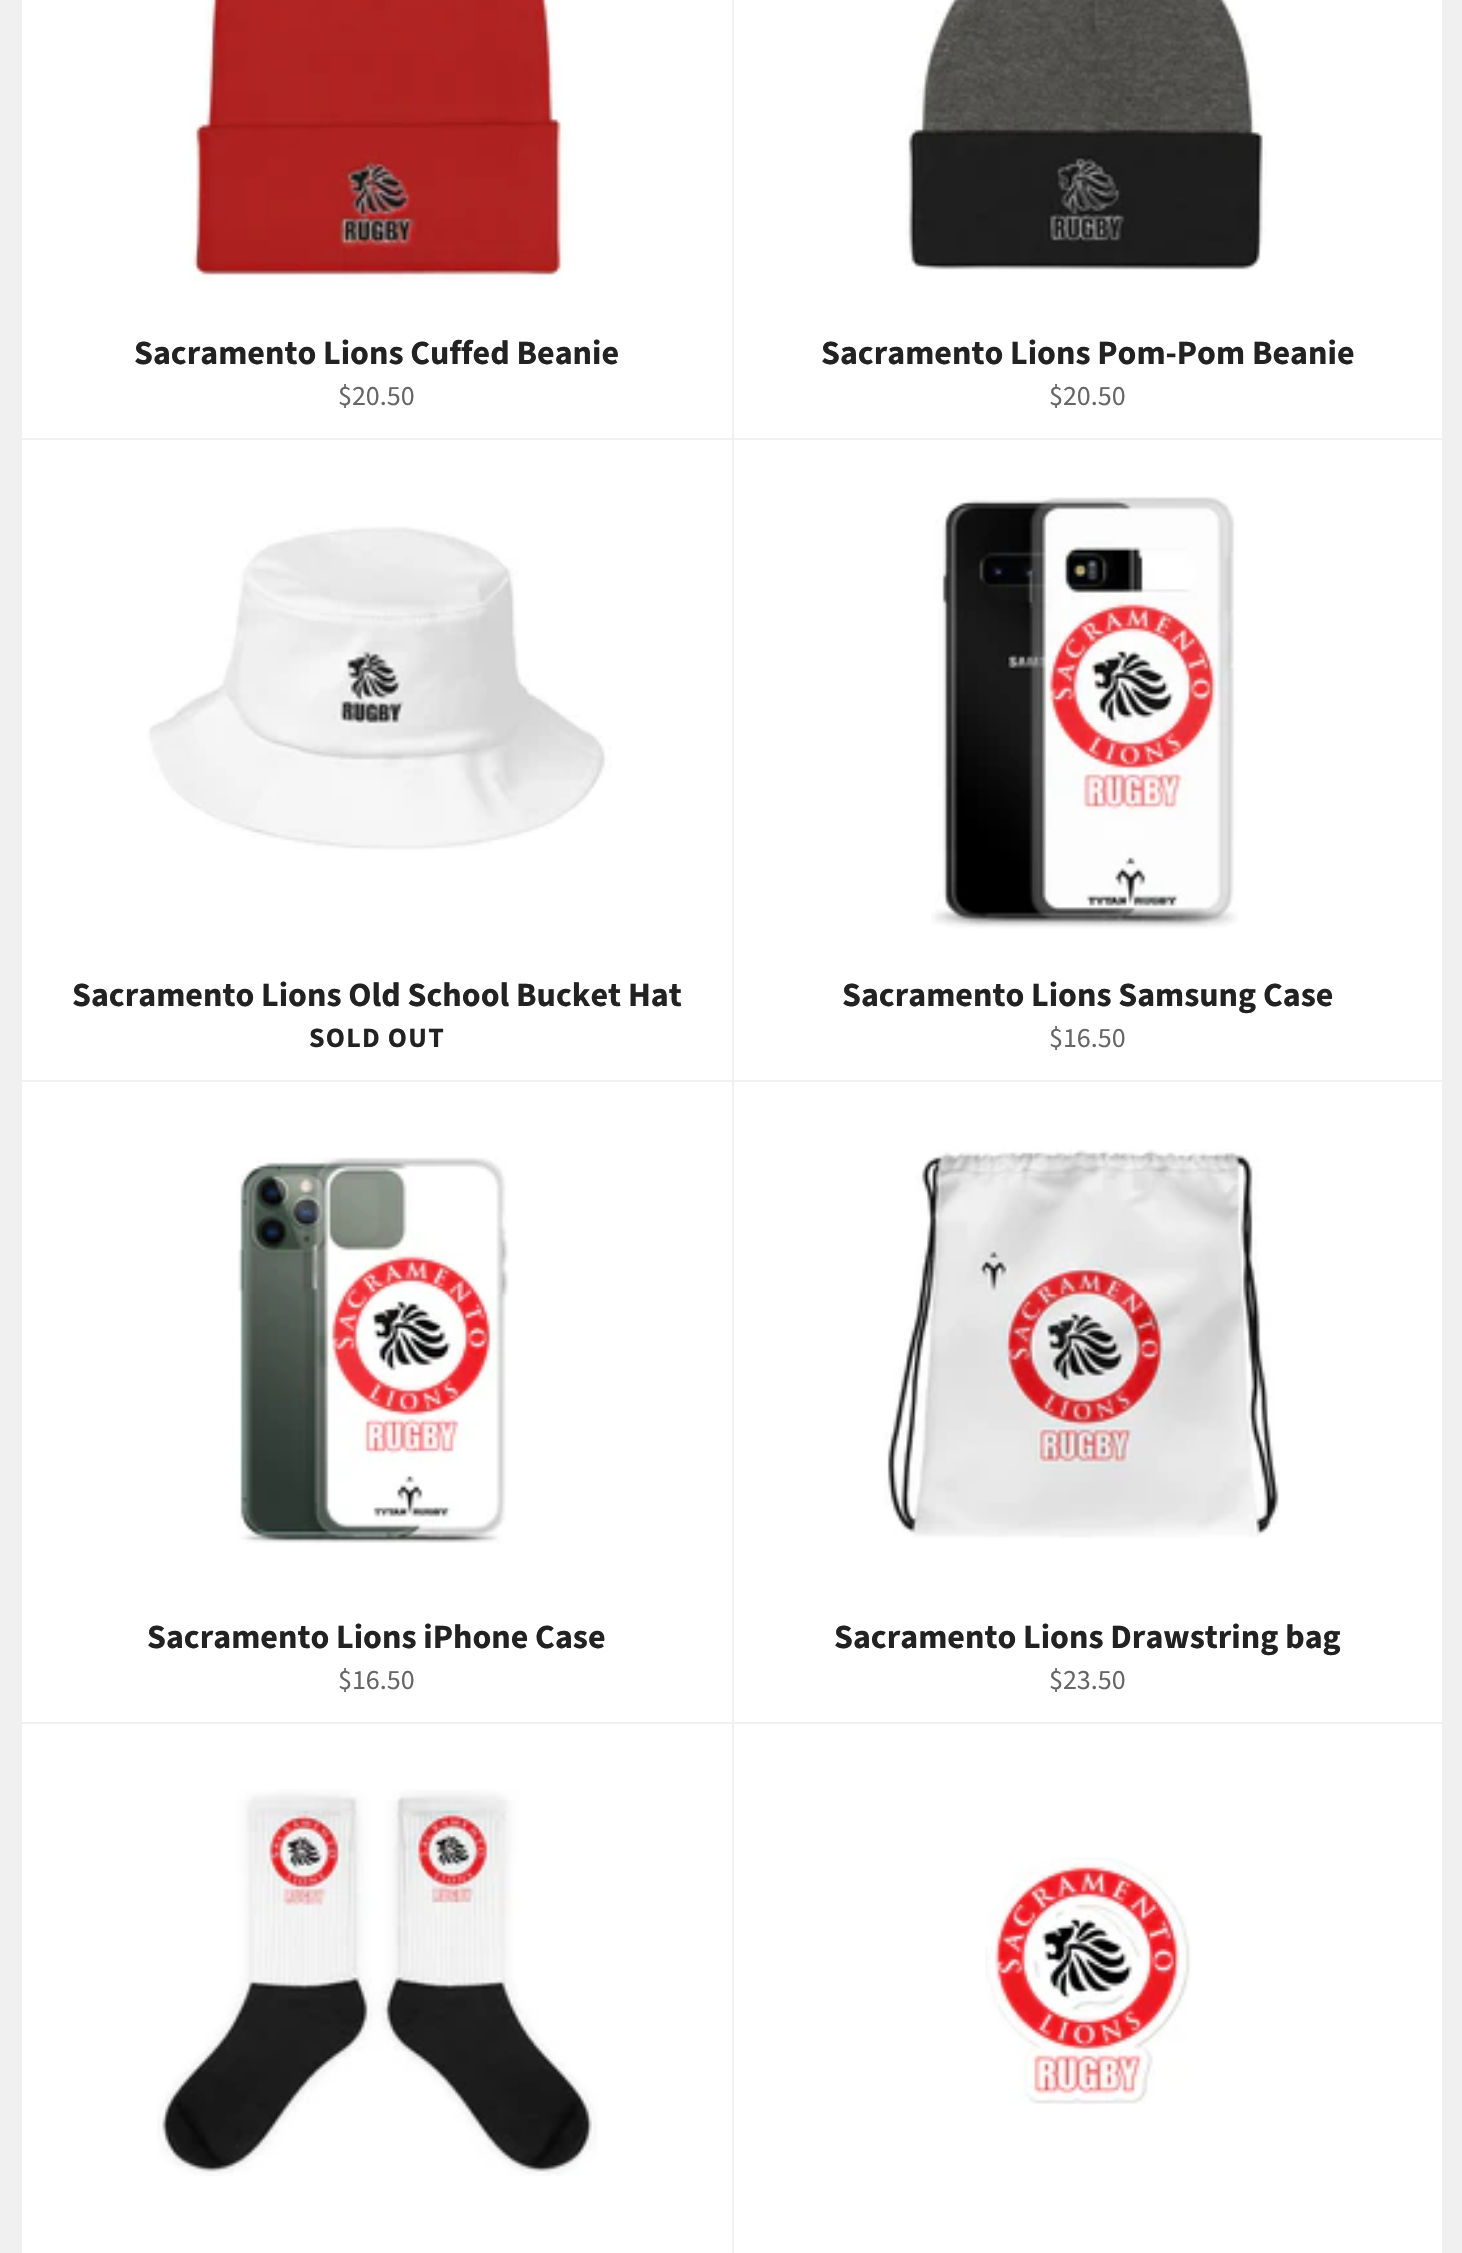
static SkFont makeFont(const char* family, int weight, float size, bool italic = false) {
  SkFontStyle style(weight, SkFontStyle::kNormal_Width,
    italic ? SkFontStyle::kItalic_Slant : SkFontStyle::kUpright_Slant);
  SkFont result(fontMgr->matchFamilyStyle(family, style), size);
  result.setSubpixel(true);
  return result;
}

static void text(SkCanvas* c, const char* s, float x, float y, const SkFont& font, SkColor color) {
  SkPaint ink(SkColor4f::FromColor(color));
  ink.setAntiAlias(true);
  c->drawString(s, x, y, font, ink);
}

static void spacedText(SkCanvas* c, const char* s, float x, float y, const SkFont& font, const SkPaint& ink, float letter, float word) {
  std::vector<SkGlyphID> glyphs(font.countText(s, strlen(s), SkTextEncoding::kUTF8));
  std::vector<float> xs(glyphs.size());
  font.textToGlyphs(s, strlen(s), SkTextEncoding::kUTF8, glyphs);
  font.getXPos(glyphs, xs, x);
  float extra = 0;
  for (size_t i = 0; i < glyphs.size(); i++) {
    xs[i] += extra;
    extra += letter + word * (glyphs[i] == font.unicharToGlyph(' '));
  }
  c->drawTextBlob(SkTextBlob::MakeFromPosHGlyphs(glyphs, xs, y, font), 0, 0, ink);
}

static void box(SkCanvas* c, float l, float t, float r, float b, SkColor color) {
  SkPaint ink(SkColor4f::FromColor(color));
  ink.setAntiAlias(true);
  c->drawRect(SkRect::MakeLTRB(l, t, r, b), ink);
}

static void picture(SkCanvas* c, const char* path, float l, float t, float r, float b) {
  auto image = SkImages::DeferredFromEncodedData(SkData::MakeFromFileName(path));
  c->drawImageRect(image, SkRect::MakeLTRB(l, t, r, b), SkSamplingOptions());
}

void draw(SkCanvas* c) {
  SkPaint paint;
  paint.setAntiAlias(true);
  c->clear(0xfff0f0f0);
  box(c, 22, 0, 732, 438, 0xffffffff);
  picture(c, "img_01.png", 189, 0, 564, 282);
  SkFont face1 = makeFont("Source Sans Pro", 700, 34);
  text(c, "Sacramento Lions Cuffed Beanie", 134, 364, face1, 0xff222222);
  SkFont face2 = makeFont("Source Sans Pro", 400, 28);
  text(c, "$20.50", 338, 405, face2, 0xff666666);
  box(c, 734, 0, 1442, 438, 0xffffffff);
  picture(c, "img_02.png", 905, 0, 1267, 270);
  text(c, "Sacramento Lions Pom-Pom Beanie", 821, 364, face1, 0xff222222);
  text(c, "$20.50", 1049, 405, face2, 0xff666666);
  box(c, 22, 440, 732, 1080, 0xffffffff);
  picture(c, "img_03.png", 147, 526, 612, 850);
  text(c, "Sacramento Lions Old School Bucket Hat", 72, 1006, face1, 0xff222222);
  SkFont face3 = makeFont("Source Sans Pro", 700, 28);
  paint.setColor(0xff222222);
  spacedText(c, "SOLD OUT", 309, 1047, face3, paint, 1.25f, 0);
  box(c, 734, 440, 1442, 1080, 0xffffffff);
  picture(c, "img_04.png", 931, 496, 1238, 929);
  text(c, "Sacramento Lions Samsung Case", 842, 1006, face1, 0xff222222);
  text(c, "$16.50", 1049, 1047, face2, 0xff666666);
  box(c, 22, 1082, 732, 1722, 0xffffffff);
  picture(c, "img_05.png", 237, 1157, 509, 1545);
  text(c, "Sacramento Lions iPhone Case", 147, 1648, face1, 0xff222222);
  text(c, "$16.50", 338, 1689, face2, 0xff666666);
  box(c, 734, 1082, 1442, 1722, 0xffffffff);
  picture(c, "img_06.png", 884, 1149, 1280, 1538);
  text(c, "Sacramento Lions Drawstring bag", 834, 1648, face1, 0xff222222);
  text(c, "$23.50", 1049, 1689, face2, 0xff666666);
  box(c, 22, 1724, 732, 2253, 0xffffffff);
  picture(c, "img_07.png", 157, 1789, 598, 2176);
  box(c, 734, 1724, 1442, 2253, 0xffffffff);
  picture(c, "img_08.png", 985, 1857, 1192, 2105);
}
